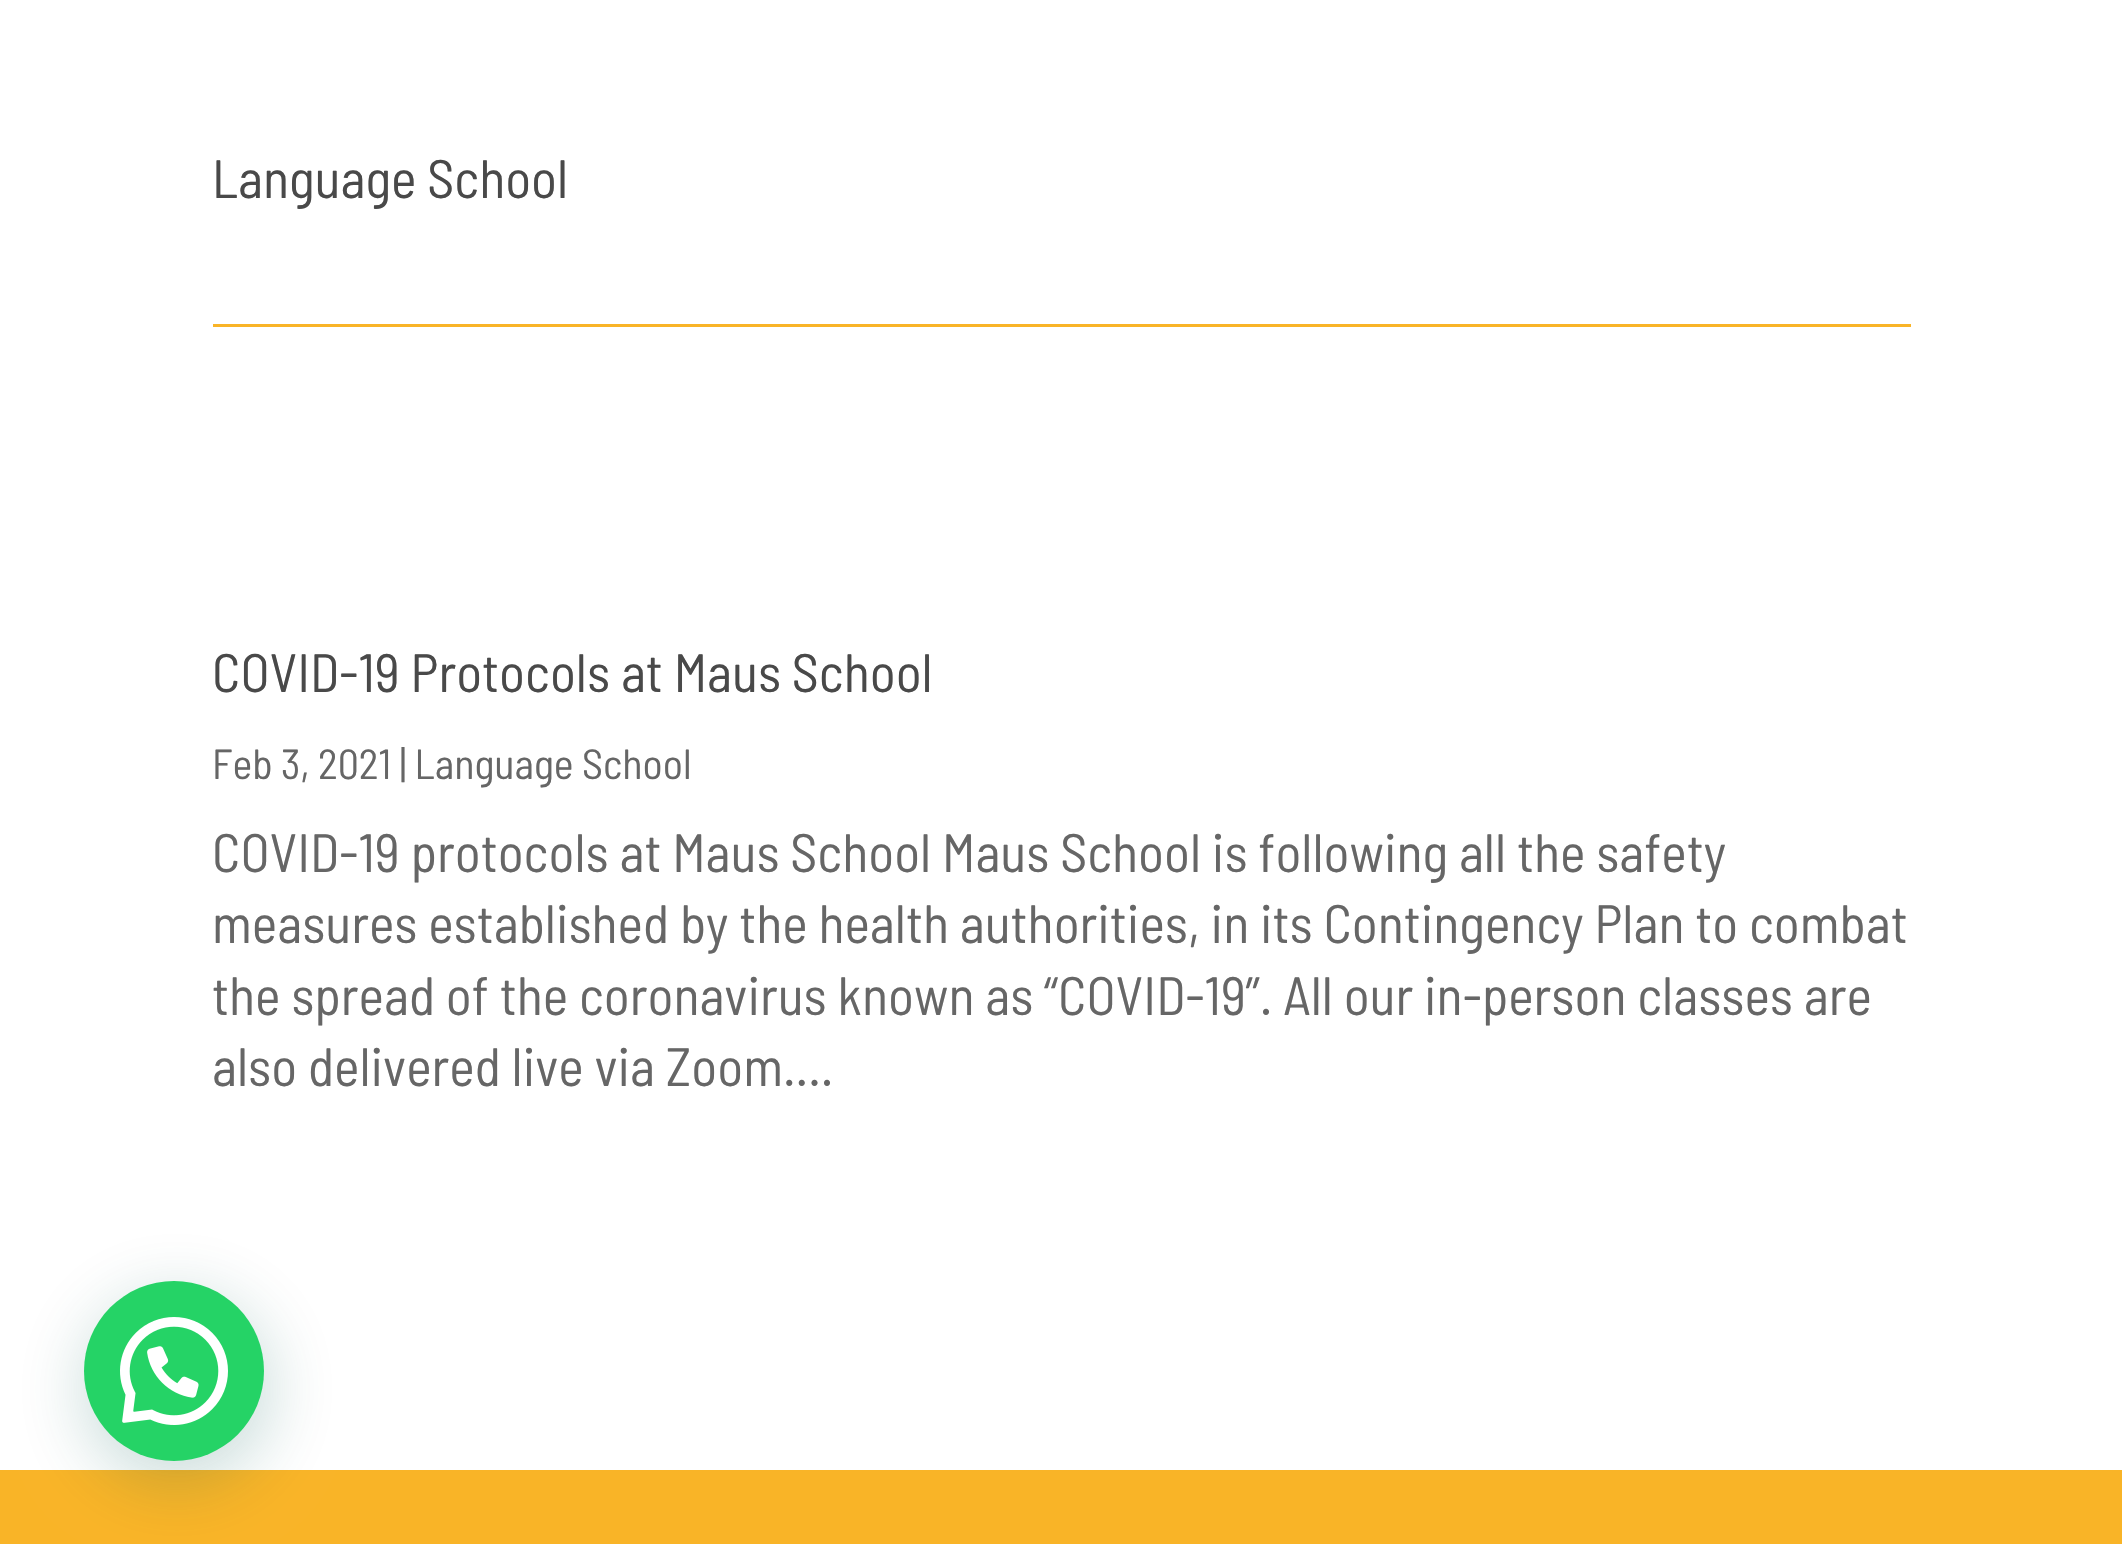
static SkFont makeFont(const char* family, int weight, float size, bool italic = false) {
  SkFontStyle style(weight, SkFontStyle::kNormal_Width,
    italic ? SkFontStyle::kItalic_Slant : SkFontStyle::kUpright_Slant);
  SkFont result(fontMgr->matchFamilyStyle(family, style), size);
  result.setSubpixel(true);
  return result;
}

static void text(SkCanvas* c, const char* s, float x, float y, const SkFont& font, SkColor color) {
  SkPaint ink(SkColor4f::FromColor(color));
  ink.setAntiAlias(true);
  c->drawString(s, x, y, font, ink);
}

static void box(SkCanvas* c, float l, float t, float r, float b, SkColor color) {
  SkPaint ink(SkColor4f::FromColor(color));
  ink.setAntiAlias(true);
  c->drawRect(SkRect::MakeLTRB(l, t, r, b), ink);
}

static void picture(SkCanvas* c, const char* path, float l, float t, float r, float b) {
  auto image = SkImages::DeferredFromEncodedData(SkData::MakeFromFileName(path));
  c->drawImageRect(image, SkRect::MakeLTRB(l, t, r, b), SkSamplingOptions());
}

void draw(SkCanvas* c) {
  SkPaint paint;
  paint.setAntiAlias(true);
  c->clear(0xffffffff);
  SkFont face1 = makeFont("Barlow Semi Condensed", 400, 54);
  text(c, "Language School", 212, 198, face1, 0xff494949);
  box(c, 213, 324, 1911, 327, 0xfff9b427);
  text(c, "COVID-19 Protocols at Maus School", 212, 692, face1, 0xff494949);
  SkFont face2 = makeFont("Barlow Semi Condensed", 400, 42);
  text(c, "Feb 3, 2021 | Language School", 212, 779, face2, 0xff666666);
  text(c, "COVID-19 protocols at Maus School Maus School is following all the safety", 212, 872, face1, 0xff666666);
  text(c, "measures established by the health authorities, in its Contingency Plan to combat", 212, 943, face1, 0xff666666);
  text(c, "the spread of the coronavirus known as “COVID-19”. All our in-person classes are", 212, 1015, face1, 0xff666666);
  text(c, "also delivered live via Zoom....", 212, 1086, face1, 0xff666666);
  box(c, 0, 1470, 2122, 1544, 0xfff9b427);
  paint.setColor(0x3d075e54);
  paint.setMaskFilter(SkMaskFilter::MakeBlur(kNormal_SkBlurStyle, 36));
  c->drawRoundRect(SkRect::MakeLTRB(87, 1299, 267, 1479), 90, 90, paint);
  paint.setMaskFilter(nullptr);
  paint.setColor(0xff25d366);
  c->drawCircle(174, 1371, 90, paint);
  picture(c, "img_01.png", 120, 1317, 228, 1425);
}
